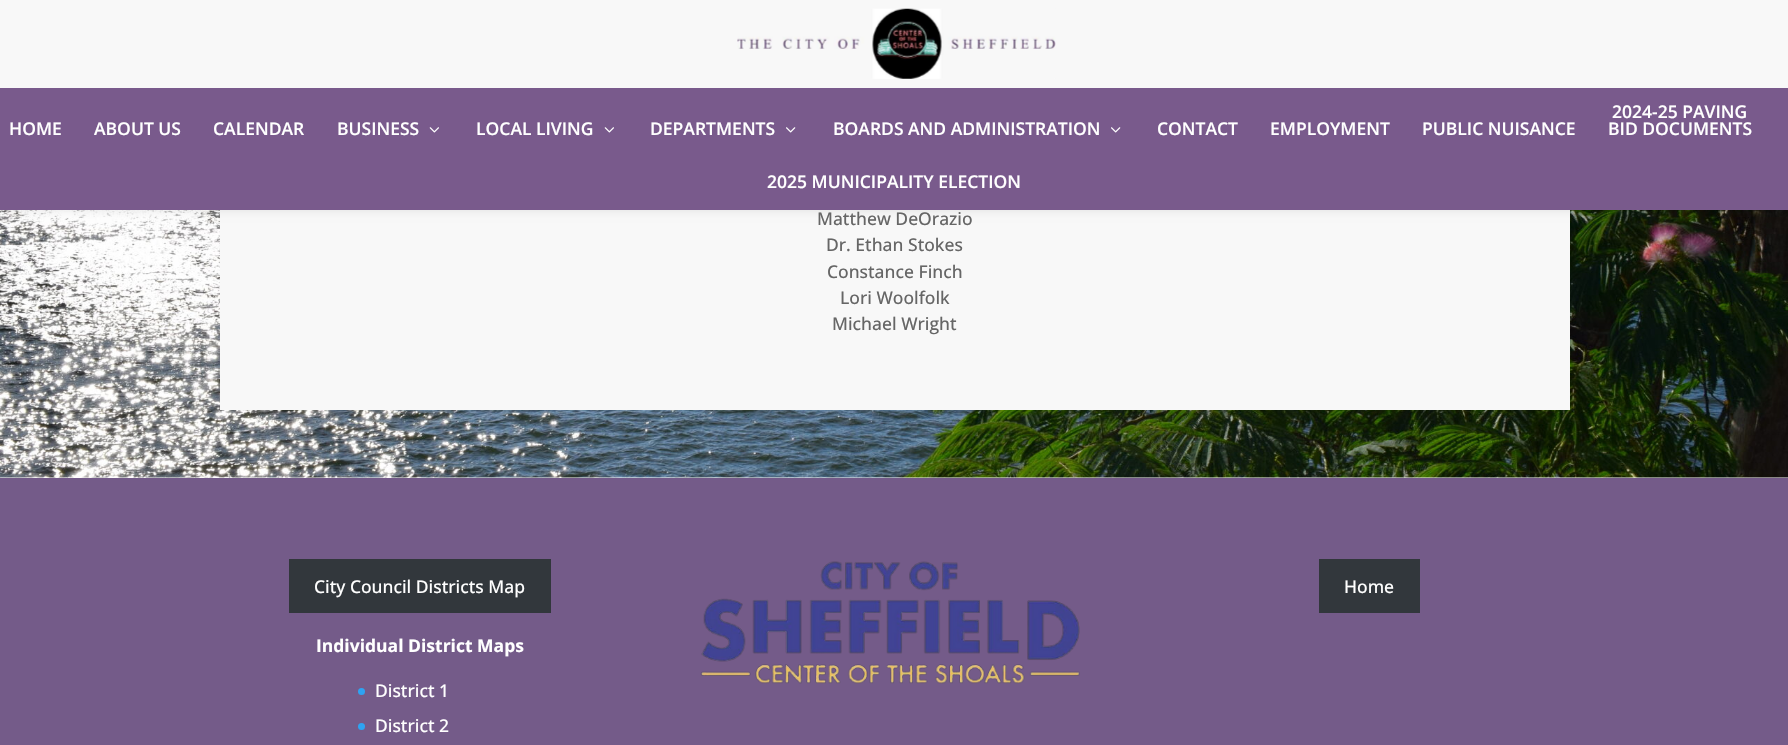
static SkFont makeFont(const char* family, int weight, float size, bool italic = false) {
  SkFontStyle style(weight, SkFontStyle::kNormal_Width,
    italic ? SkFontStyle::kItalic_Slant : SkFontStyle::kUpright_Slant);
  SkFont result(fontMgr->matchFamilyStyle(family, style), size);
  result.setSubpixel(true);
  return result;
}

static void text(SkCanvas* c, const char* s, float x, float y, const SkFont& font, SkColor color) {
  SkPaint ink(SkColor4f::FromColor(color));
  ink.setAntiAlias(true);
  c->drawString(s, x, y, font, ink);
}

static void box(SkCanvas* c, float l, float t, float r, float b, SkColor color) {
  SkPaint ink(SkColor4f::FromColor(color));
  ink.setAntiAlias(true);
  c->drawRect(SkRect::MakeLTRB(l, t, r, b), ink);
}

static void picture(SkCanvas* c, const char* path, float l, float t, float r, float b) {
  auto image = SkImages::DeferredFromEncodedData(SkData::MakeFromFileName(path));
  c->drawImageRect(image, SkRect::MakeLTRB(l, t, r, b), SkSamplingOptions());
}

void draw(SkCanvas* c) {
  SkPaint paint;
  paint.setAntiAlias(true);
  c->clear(0xffffffff);
  picture(c, "img_04.png", 0, 210, 1788, 478);
  box(c, 220, 210, 1570, 410, 0xfff8f8f8);
  paint.setColor(0x1a000000);
  paint.setMaskFilter(SkMaskFilter::MakeBlur(kNormal_SkBlurStyle, 4.5f));
  c->drawRect(SkRect::MakeLTRB(0, 0, 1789, 210), paint);
  paint.setMaskFilter(nullptr);
  box(c, 0, 88, 1788, 210, 0xff795a8c);
  box(c, 0, 0, 1788, 88, 0xfff8f8f8);
  picture(c, "img_01.png", 737, 8, 1056, 79);
  SkFont face1 = makeFont("Open Sans", 600, 17.5f);
  text(c, "HOME", 9, 135, face1, 0xffffffff);
  text(c, "ABOUT US", 94, 135, face1, 0xffffffff);
  text(c, "CALENDAR", 213, 135, face1, 0xffffffff);
  text(c, "BUSINESS", 337, 135, face1, 0xffffffff);
  picture(c, "img_02.png", 429, 127, 439, 133);
  text(c, "LOCAL LIVING", 476, 135, face1, 0xffffffff);
  picture(c, "img_02.png", 604, 127, 614, 133);
  text(c, "DEPARTMENTS", 650, 135, face1, 0xffffffff);
  picture(c, "img_03.png", 786, 127, 796, 133);
  text(c, "BOARDS AND ADMINISTRATION", 833, 135, face1, 0xffffffff);
  picture(c, "img_03.png", 1111, 127, 1121, 133);
  text(c, "CONTACT", 1157, 135, face1, 0xffffffff);
  text(c, "EMPLOYMENT", 1270, 135, face1, 0xffffffff);
  text(c, "PUBLIC NUISANCE", 1422, 135, face1, 0xffffffff);
  text(c, "2024-25 PAVING", 1612, 118, face1, 0xffffffff);
  text(c, "BID DOCUMENTS", 1608, 135, face1, 0xffffffff);
  text(c, "2025 MUNICIPALITY ELECTION", 767, 188, face1, 0xffffffff);
  SkFont face2 = makeFont("Open Sans", 500, 17.5f);
  text(c, "Matthew DeOrazio", 817, 225, face2, 0xff666666);
  text(c, "Dr. Ethan Stokes", 826, 251, face2, 0xff666666);
  text(c, "Constance Finch", 827, 278, face2, 0xff666666);
  text(c, "Lori Woolfolk", 840, 304, face2, 0xff666666);
  text(c, "Michael Wright", 832, 330, face2, 0xff666666);
  box(c, 0, 478, 1788, 745, 0xff745b89);
  box(c, 289, 559, 551, 613, 0xff32373c);
  text(c, "City Council Districts Map", 314, 593, face2, 0xffffffff);
  SkFont face3 = makeFont("Open Sans", 700, 17.5f);
  text(c, "Individual District Maps", 316, 652, face3, 0xffffffff);
  paint.setColor(0xff2ea3f2);
  c->drawCircle(361.5f, 691.5f, 3.5f, paint);
  text(c, "District 1", 375, 697, face2, 0xffffffff);
  c->drawCircle(361.5f, 726.5f, 3.5f, paint);
  text(c, "District 2", 375, 732, face2, 0xffffffff);
  picture(c, "img_05.png", 700, 561, 1080, 684);
  box(c, 1319, 559, 1420, 613, 0xff32373c);
  text(c, "Home", 1344, 593, face2, 0xffffffff);
}
